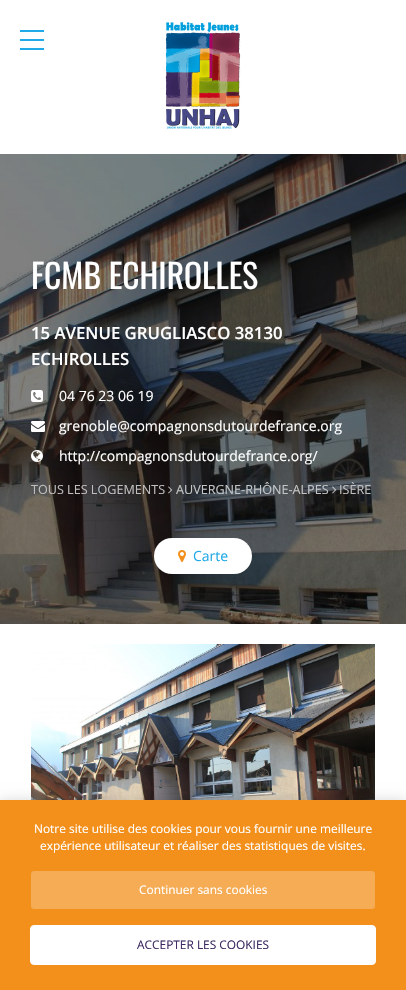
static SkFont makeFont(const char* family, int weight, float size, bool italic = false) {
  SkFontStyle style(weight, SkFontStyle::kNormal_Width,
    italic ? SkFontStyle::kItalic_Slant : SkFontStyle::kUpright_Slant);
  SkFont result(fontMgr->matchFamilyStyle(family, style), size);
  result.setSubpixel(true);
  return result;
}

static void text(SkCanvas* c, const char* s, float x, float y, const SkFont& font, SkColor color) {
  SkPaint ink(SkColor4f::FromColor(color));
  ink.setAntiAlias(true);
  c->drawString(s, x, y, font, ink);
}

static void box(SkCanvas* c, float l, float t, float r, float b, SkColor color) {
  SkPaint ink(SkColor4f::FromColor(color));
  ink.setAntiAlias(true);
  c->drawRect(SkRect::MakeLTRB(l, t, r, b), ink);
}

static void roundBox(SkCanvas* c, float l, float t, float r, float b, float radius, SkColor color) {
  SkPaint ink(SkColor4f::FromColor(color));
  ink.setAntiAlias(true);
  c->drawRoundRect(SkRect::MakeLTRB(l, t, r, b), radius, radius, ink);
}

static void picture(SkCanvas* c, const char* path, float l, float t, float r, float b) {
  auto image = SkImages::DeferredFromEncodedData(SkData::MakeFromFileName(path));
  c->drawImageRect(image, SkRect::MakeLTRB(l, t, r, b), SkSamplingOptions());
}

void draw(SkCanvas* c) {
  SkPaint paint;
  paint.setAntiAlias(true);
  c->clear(0xffffffff);
  box(c, 20, 30, 44, 32, 0xff22aae8);
  box(c, 20, 48, 44, 50, 0xff22aae8);
  box(c, 20, 39, 44, 41, 0xff22aae8);
  picture(c, "img_01.png", 165, 22, 241, 129);
  picture(c, "img_02.png", 0, 154, 406, 624);
  SkFont face1 = makeFont("Oswald", 400, 33.5f);
  text(c, "FCMB ECHIROLLES", 31, 289, face1, 0xffffffff);
  SkFont face2 = makeFont("Open Sans", 600, 16.75f);
  text(c, "15 AVENUE GRUGLIASCO 38130", 31, 339, face2, 0xffffffff);
  text(c, "ECHIROLLES", 31, 365, face2, 0xffffffff);
  picture(c, "img_03.png", 31, 390, 43, 402);
  SkFont face3 = makeFont("Open Sans", 400, 14);
  text(c, "04 76 23 06 19", 59, 401, face3, 0xffffffff);
  picture(c, "img_04.png", 31, 421, 45, 432);
  text(c, "grenoble@compagnonsdutourdefrance.org", 59, 431, face3, 0xffffffff);
  picture(c, "img_05.png", 31, 450, 43, 462);
  text(c, "http://compagnonsdutourdefrance.org/", 59, 461, face3, 0xffffffff);
  SkFont face4 = makeFont("Open Sans", 400, 12.6f);
  text(c, "TOUS LES LOGEMENTS", 31, 494, face4, 0xffc0bfbf);
  picture(c, "img_06.png", 168, 486, 173, 494);
  text(c, "AUVERGNE-RHÔNE-ALPES", 176, 494, face4, 0xffc3c5c6);
  picture(c, "img_07.png", 332, 486, 337, 494);
  text(c, "ISÈRE", 339, 494, face4, 0xffc0bfbf);
  roundBox(c, 154, 538, 252, 574, 18, 0xffffffff);
  picture(c, "img_08.png", 178, 550, 186, 562);
  text(c, "Carte", 193, 561, face3, 0xff22aae8);
  picture(c, "img_09.png", 31, 644, 375, 800);
  paint.setColor(0x26000000);
  paint.setMaskFilter(SkMaskFilter::MakeBlur(kNormal_SkBlurStyle, 6));
  c->drawRect(SkRect::MakeLTRB(0, 800, 406, 990), paint);
  paint.setMaskFilter(nullptr);
  box(c, 0, 800, 406, 990, 0xfff2901b);
  SkFont face5 = makeFont("Open Sans", 400, 11.9f);
  text(c, "Notre site utilise des cookies pour vous fournir une meilleure", 34, 833, face5, 0xffffffff);
  text(c, "expérience utilisateur et réaliser des statistiques de visites.", 40, 850, face5, 0xffffffff);
  paint.setColor(0xfff5ac54);
  c->drawRoundRect(SkRect::MakeLTRB(30.5f, 870.5f, 375.5f, 909.5f), 3.5f, 3.5f, paint);
  paint.setStyle(SkPaint::kStroke_Style);
  paint.setStrokeWidth(1);
  paint.setColor(0xfff2901b);
  c->drawRoundRect(SkRect::MakeLTRB(30.5f, 870.5f, 375.5f, 909.5f), 3.5f, 3.5f, paint);
  text(c, "Continuer sans cookies", 139, 894, face5, 0xffffffff);
  paint.setStyle(SkPaint::kFill_Style);
  paint.setColor(0xffffffff);
  c->drawRoundRect(SkRect::MakeLTRB(30.5f, 925.5f, 375.5f, 964.5f), 3.5f, 3.5f, paint);
  paint.setStyle(SkPaint::kStroke_Style);
  c->drawRoundRect(SkRect::MakeLTRB(30.5f, 925.5f, 375.5f, 964.5f), 3.5f, 3.5f, paint);
  text(c, "ACCEPTER LES COOKIES", 137, 949, face5, 0xff3e2a61);
}
